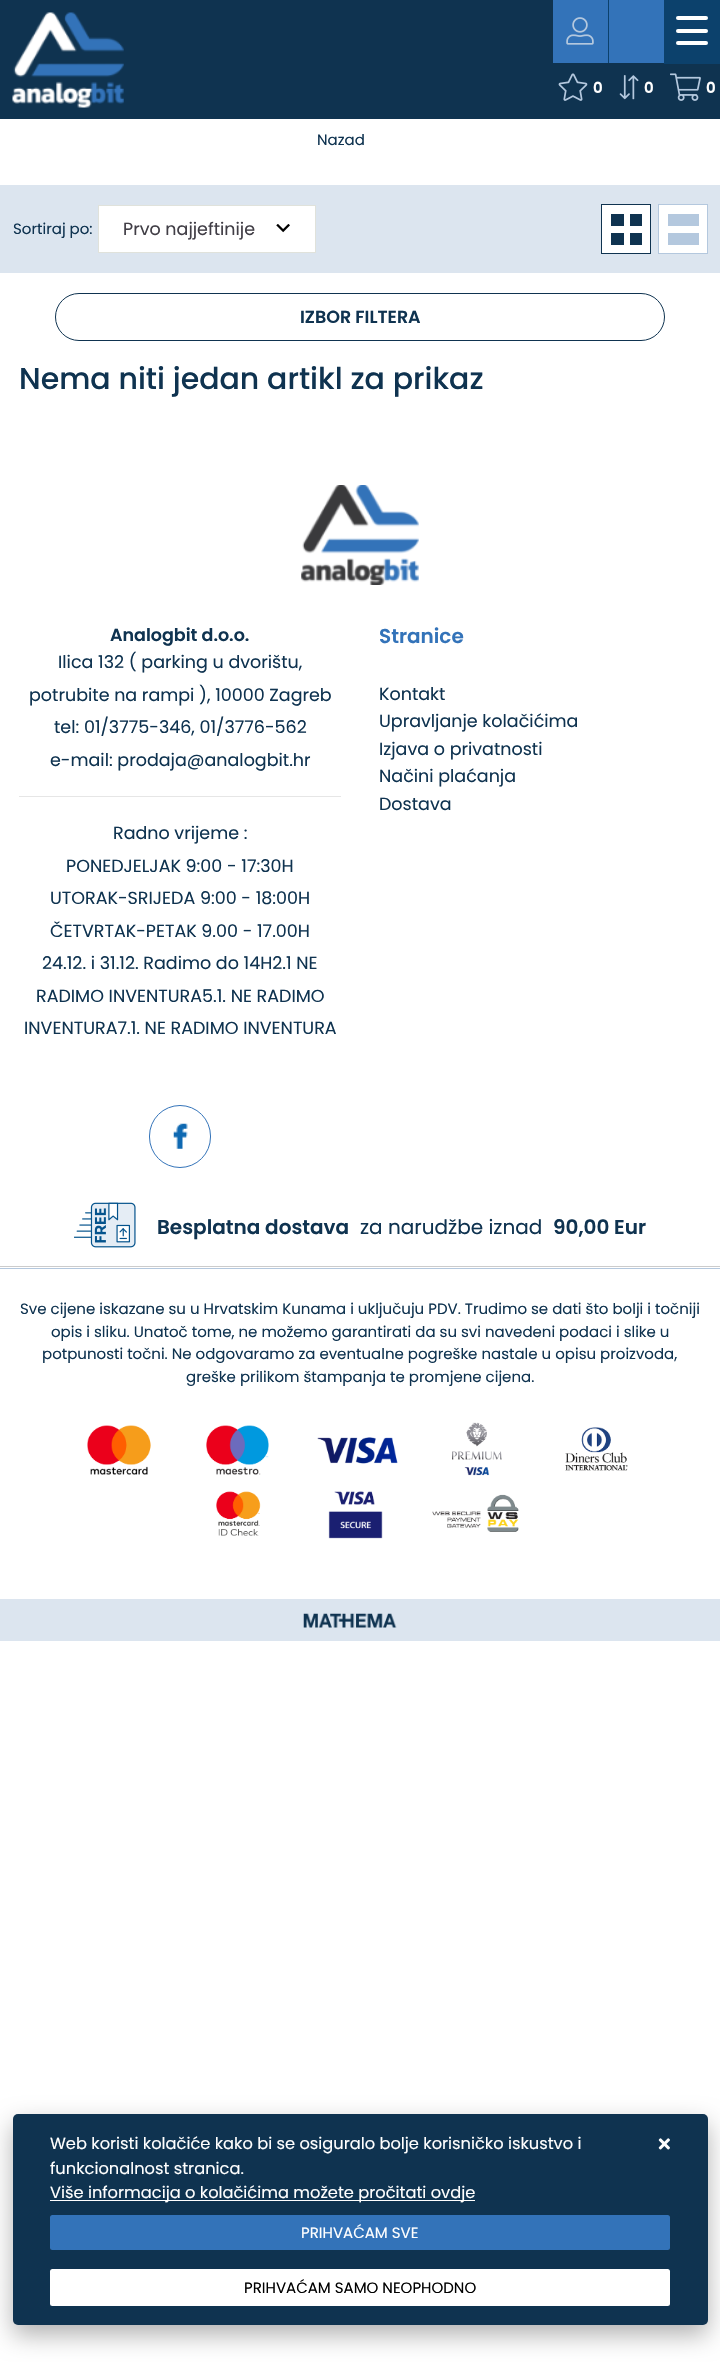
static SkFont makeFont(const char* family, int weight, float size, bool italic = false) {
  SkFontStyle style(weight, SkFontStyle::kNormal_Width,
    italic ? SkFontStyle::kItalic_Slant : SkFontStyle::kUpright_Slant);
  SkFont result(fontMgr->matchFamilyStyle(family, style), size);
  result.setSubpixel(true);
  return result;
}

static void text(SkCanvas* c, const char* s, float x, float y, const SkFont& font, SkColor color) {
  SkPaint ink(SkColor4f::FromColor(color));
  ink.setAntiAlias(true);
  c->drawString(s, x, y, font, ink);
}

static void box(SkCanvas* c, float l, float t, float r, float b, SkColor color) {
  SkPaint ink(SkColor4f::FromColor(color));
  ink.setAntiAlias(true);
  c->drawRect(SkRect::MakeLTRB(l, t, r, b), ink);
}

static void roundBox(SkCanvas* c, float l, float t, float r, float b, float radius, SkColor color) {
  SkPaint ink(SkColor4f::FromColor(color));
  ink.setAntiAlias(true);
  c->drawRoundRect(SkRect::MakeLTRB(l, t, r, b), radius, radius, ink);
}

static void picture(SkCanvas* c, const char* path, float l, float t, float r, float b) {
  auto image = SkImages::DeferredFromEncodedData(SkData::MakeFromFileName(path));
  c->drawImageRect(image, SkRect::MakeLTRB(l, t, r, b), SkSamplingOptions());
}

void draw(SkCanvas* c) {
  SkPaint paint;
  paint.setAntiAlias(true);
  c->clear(0xffffffff);
  box(c, 0, 0, 720, 119, 0xff0f3350);
  picture(c, "img_01.png", 12, 12, 124, 108);
  box(c, 609, 0, 664, 63, 0xff3373b9);
  box(c, 608, 0, 609, 63, 0xff0c416c);
  box(c, 664, 0, 720, 64, 0xff0c416c);
  roundBox(c, 676, 16, 708, 20, 2, 0xffffffff);
  roundBox(c, 676, 29, 708, 33, 2, 0xffffffff);
  roundBox(c, 676, 41, 708, 45, 2, 0xffffffff);
  box(c, 553, 0, 608, 63, 0xff3373b9);
  picture(c, "img_02.png", 566, 17, 594, 45);
  picture(c, "img_03.png", 558, 73, 588, 101);
  SkFont face1 = makeFont("Poppins", 600, 15);
  text(c, "0", 593, 93, face1, 0xffffffff);
  picture(c, "img_04.png", 619, 75, 639, 100);
  text(c, "0", 644, 93, face1, 0xffffffff);
  picture(c, "img_05.png", 670, 73, 701, 101);
  text(c, "0", 706, 93, face1, 0xffffffff);
  SkFont face2 = makeFont("Poppins", 400, 15);
  text(c, "Nazad", 317, 145, face2, 0xff0f3350);
  box(c, 0, 185, 720, 273, 0xffdce5ef);
  text(c, "Sortiraj po:", 13, 234, face2, 0xff0f3350);
  box(c, 99, 206, 315, 252, 0xffffffff);
  picture(c, "img_06.png", 276, 224, 290, 233);
  paint.setStyle(SkPaint::kStroke_Style);
  paint.setStrokeWidth(1);
  paint.setColor(0xffe0e2db);
  c->drawRect(SkRect::MakeLTRB(98.5f, 205.5f, 315.5f, 252.5f), paint);
  SkFont face3 = makeFont("Poppins", 400, 17.5f);
  text(c, "Prvo najjeftinije", 123, 235, face3, 0xff413e46);
  paint.setStyle(SkPaint::kFill_Style);
  paint.setColor(0xffffffff);
  c->drawRect(SkRect::MakeLTRB(601.5f, 204.5f, 650.5f, 253.5f), paint);
  paint.setStyle(SkPaint::kStroke_Style);
  paint.setColor(0xff0f3350);
  c->drawRect(SkRect::MakeLTRB(601.5f, 204.5f, 650.5f, 253.5f), paint);
  box(c, 611, 214, 624, 226, 0xff0f3350);
  box(c, 611, 233, 624, 245, 0xff0f3350);
  box(c, 630, 214, 642, 226, 0xff0f3350);
  box(c, 630, 233, 642, 245, 0xff0f3350);
  paint.setStyle(SkPaint::kFill_Style);
  paint.setColor(0xffffffff);
  c->drawRect(SkRect::MakeLTRB(658.5f, 204.5f, 707.5f, 253.5f), paint);
  paint.setStyle(SkPaint::kStroke_Style);
  paint.setColor(0xffb4c8de);
  c->drawRect(SkRect::MakeLTRB(658.5f, 204.5f, 707.5f, 253.5f), paint);
  box(c, 668, 214, 699, 226, 0xffb4c8de);
  box(c, 668, 233, 699, 245, 0xffb4c8de);
  paint.setColor(0xff0f3350);
  c->drawRoundRect(SkRect::MakeLTRB(55.5f, 293.5f, 664.5f, 340.5f), 23.5f, 23.5f, paint);
  SkFont face4 = makeFont("Poppins", 600, 17.5f);
  text(c, "IZBOR FILTERA", 300, 323, face4, 0xff0f3350);
  SkFont face5 = makeFont("Poppins", 500, 30);
  text(c, "Nema niti jedan artikl za prikaz", 19, 389, face5, 0xff0f3350);
  picture(c, "img_07.png", 301, 485, 419, 585);
  text(c, "Analogbit d.o.o.", 110, 641, face4, 0xff0f3350);
  text(c, "Ilica 132 ( parking u dvorištu,", 58, 668, face3, 0xff0f3350);
  text(c, "potrubite na rampi ), 10000 Zagreb", 29, 701, face3, 0xff0f3350);
  text(c, "tel: 01/3775-346, 01/3776-562", 54, 733, face3, 0xff0f3350);
  text(c, "e-mail: prodaja@analogbit.hr", 50, 766, face3, 0xff0f3350);
  box(c, 19, 796, 341, 797, 0xffe6e6e6);
  text(c, "Radno vrijeme :", 113, 839, face3, 0xff0f3350);
  text(c, "PONEDJELJAK 9:00 - 17:30H", 66, 872, face3, 0xff0f3350);
  text(c, "UTORAK-SRIJEDA 9:00 - 18:00H", 50, 904, face3, 0xff0f3350);
  text(c, "ČETVRTAK-PETAK 9.00 - 17.00H", 50, 937, face3, 0xff0f3350);
  text(c, "24.12. i 31.12. Radimo do 14H2.1 NE", 42, 969, face3, 0xff0f3350);
  text(c, "RADIMO INVENTURA5.1. NE RADIMO", 36, 1002, face3, 0xff0f3350);
  text(c, "INVENTURA7.1. NE RADIMO INVENTURA", 24, 1034, face3, 0xff0f3350);
  paint.setColor(0xff3373b9);
  c->drawRoundRect(SkRect::MakeLTRB(149.5f, 1105.5f, 210.5f, 1167.5f), 30.5f, 30.5f, paint);
  picture(c, "img_08.png", 173, 1123, 188, 1149);
  SkFont face6 = makeFont("Poppins", 600, 20);
  text(c, "Stranice", 379, 643, face6, 0xff3373b9);
  text(c, "Kontakt", 379, 700, face3, 0xff0f3350);
  text(c, "Upravljanje kolačićima", 379, 727, face3, 0xff0f3350);
  text(c, "Izjava o privatnosti", 379, 755, face3, 0xff0f3350);
  text(c, "Načini plaćanja", 379, 782, face3, 0xff0f3350);
  text(c, "Dostava", 379, 810, face3, 0xff0f3350);
  box(c, 0, 1266, 720, 1267, 0xffcccccc);
  picture(c, "img_09.png", 74, 1202, 136, 1248);
  text(c, "Besplatna dostava", 157, 1234, face6, 0xff0f3350);
  SkFont face7 = makeFont("Poppins", 400, 20);
  text(c, "za narudžbe iznad", 360, 1234, face7, 0xff0f3350);
  text(c, "90,00 Eur", 553, 1234, face6, 0xff0f3350);
  box(c, 0, 1268, 720, 1269, 0xffb4c8de);
  text(c, "Sve cijene iskazane su u Hrvatskim Kunama i uključuju PDV. Trudimo se dati što bolji i točniji", 20, 1314, face2, 0xff0f3350);
  text(c, "opis i sliku. Unatoč tome, ne možemo garantirati da su svi navedeni podaci i slike u", 51, 1337, face2, 0xff0f3350);
  text(c, "potpunosti točni. Ne odgovaramo za eventualne pogreške nastale u opisu proizvoda,", 42, 1359, face2, 0xff0f3350);
  text(c, "greške prilikom štampanja te promjene cijena.", 186, 1382, face2, 0xff0f3350);
  picture(c, "img_10.png", 87, 1425, 151, 1475);
  picture(c, "img_11.png", 206, 1425, 269, 1475);
  picture(c, "img_12.png", 317, 1437, 398, 1464);
  picture(c, "img_13.png", 452, 1422, 502, 1476);
  picture(c, "img_14.png", 565, 1427, 628, 1471);
  picture(c, "img_15.png", 216, 1491, 261, 1536);
  picture(c, "img_16.png", 328, 1491, 383, 1539);
  picture(c, "img_17.png", 432, 1494, 519, 1532);
  box(c, 0, 1599, 720, 1641, 0xffdce5ef);
  picture(c, "img_18.png", 303, 1613, 397, 1628);
  paint.setStyle(SkPaint::kFill_Style);
  paint.setColor(0x4d000000);
  paint.setMaskFilter(SkMaskFilter::MakeBlur(kNormal_SkBlurStyle, 12.5f));
  c->drawRoundRect(SkRect::MakeLTRB(13, 2124, 708, 2335), 5, 5, paint);
  paint.setMaskFilter(nullptr);
  roundBox(c, 13, 2114, 708, 2325, 5, 0xff0f3350);
  SkFont face8 = makeFont("Poppins", 400, 16.25f);
  text(c, "Web koristi kolačiće kako bi se osiguralo bolje korisničko iskustvo i", 50, 2149, face8, 0xffffffff);
  text(c, "funkcionalnost stranica.", 50, 2174, face8, 0xffffffff);
  box(c, 50, 2200, 475, 2201, 0xffffffff);
  text(c, "Više informacija o kolačićima možete pročitati ovdje", 50, 2198, face8, 0xffffffff);
  picture(c, "img_19.png", 658, 2138, 670, 2150);
  roundBox(c, 50, 2215, 670, 2250, 2.5f, 0xff3373b9);
  text(c, "PRIHVAĆAM SVE", 301, 2238, face2, 0xffffffff);
  roundBox(c, 50, 2269, 670, 2306, 2.5f, 0xffffffff);
  text(c, "PRIHVAĆAM SAMO NEOPHODNO", 244, 2293, face2, 0xff000000);
}
